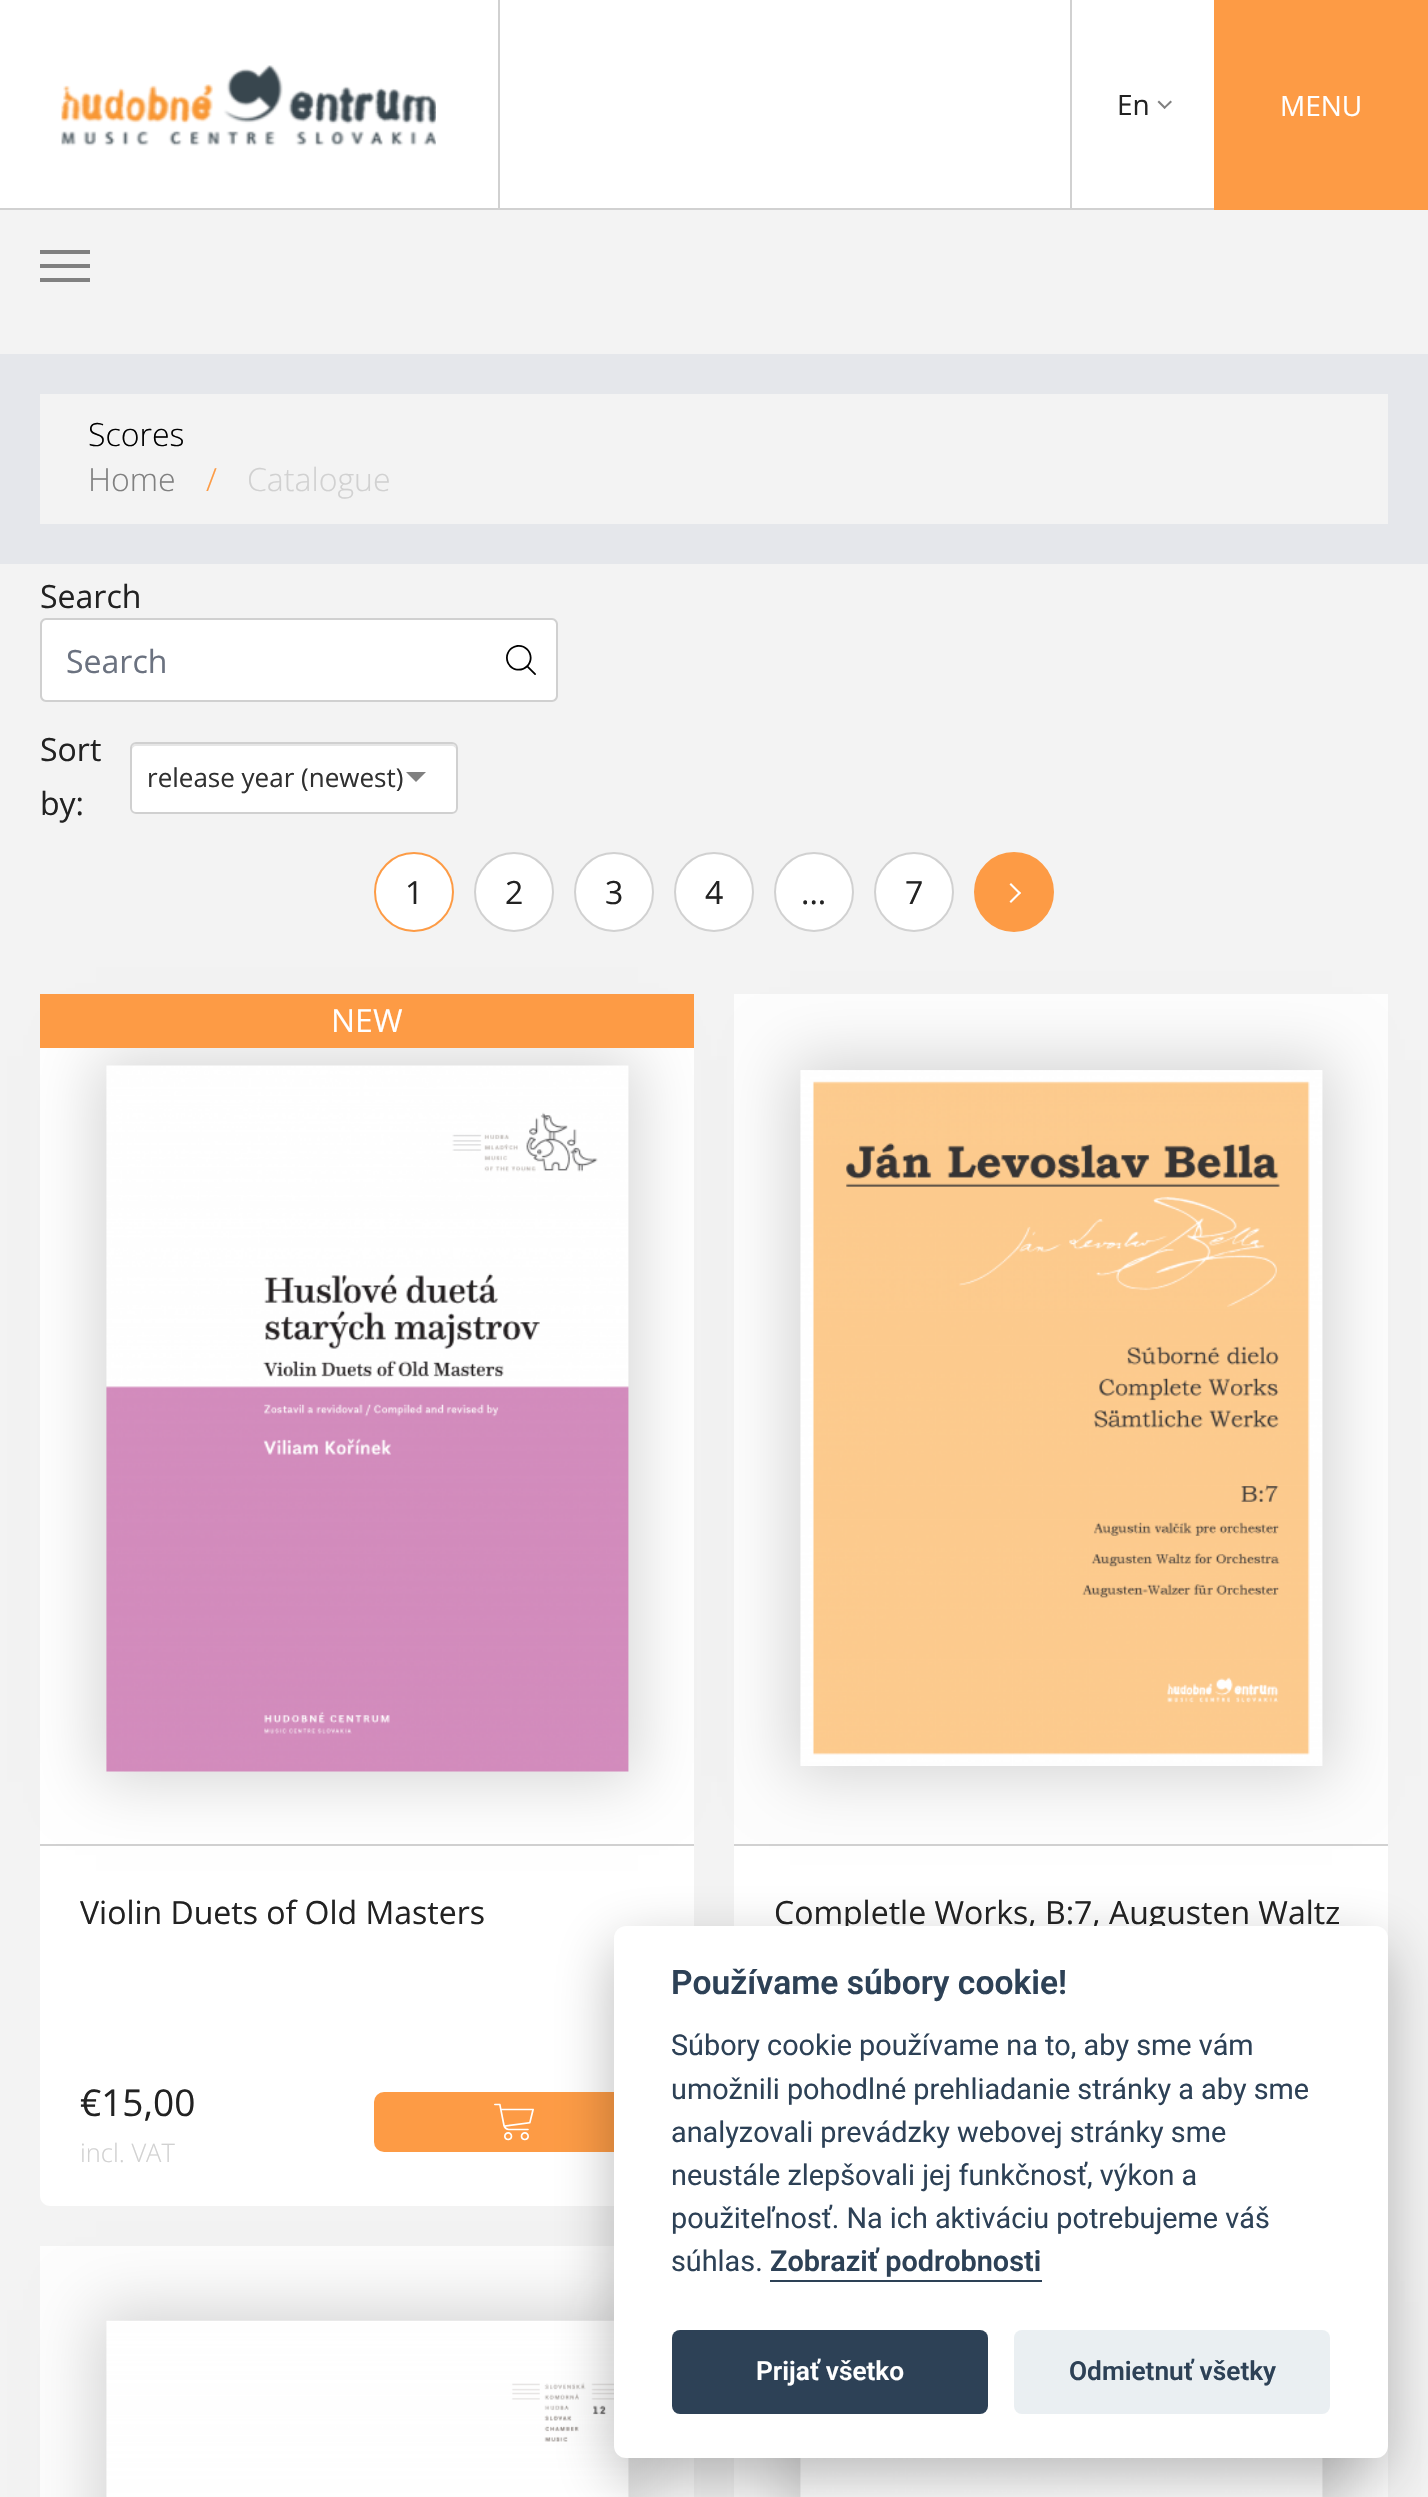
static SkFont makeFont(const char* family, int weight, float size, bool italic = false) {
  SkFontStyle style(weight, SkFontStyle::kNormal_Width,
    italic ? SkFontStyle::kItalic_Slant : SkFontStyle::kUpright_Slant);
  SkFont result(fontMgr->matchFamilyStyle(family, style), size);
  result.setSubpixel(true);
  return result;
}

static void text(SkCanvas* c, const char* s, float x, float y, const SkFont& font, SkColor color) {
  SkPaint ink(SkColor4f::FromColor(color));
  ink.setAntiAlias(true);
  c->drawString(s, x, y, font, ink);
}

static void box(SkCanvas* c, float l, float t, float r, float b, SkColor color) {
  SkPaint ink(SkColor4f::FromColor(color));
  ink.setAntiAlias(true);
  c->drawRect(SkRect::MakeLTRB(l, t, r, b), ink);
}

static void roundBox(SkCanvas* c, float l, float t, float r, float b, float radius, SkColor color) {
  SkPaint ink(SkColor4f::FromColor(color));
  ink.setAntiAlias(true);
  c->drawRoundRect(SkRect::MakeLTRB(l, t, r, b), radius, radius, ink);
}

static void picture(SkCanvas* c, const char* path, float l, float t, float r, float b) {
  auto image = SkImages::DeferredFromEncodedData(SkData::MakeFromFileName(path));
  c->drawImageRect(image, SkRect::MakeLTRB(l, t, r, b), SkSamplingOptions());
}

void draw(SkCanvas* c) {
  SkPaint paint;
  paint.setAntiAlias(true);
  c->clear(0xffffffff);
  box(c, 0, 208, 1214, 210, 0xffd1d1d1);
  box(c, 498, 0, 500, 210, 0xffd1d1d1);
  picture(c, "img_01.png", 61, 65, 436, 146);
  box(c, 1070, 0, 1072, 210, 0xffd1d1d1);
  SkFont face1 = makeFont("Open Sans", 400, 28);
  text(c, "En", 1117, 115, face1, 0xff222222);
  paint.setColor(0xff808080);
  c->drawPath(SkPathBuilder().moveTo(1170.5f, 100.5f).lineTo(1172, 102).lineTo(1164.5f, 109).lineTo(1163.5f, 107.5f).close().detach(), paint);
  c->drawPath(SkPathBuilder().moveTo(1159, 100.5f).lineTo(1166, 107.5f).lineTo(1164.5f, 109).lineTo(1157.5f, 102).close().detach(), paint);
  box(c, 1214, 0, 1428, 210, 0xfffd9b45);
  text(c, "MENU", 1280, 116, face1, 0xffffffff);
  box(c, 0, 210, 1428, 2497, 0xfff3f3f3);
  box(c, 40, 250, 90, 254, 0xff808080);
  box(c, 40, 264, 90, 268, 0xff808080);
  box(c, 40, 278, 90, 282, 0xff808080);
  paint.setStyle(SkPaint::kStroke_Style);
  paint.setStrokeWidth(40);
  paint.setColor(0xffe5e7eb);
  c->drawRect(SkRect::MakeLTRB(20, 374, 1408, 544), paint);
  SkFont face2 = makeFont("Open Sans", 300, 32);
  text(c, "Scores", 88, 446, face2, 0xff000000);
  text(c, "Home", 88, 491, face2, 0xff808080);
  text(c, "/", 206, 491, face2, 0xfffd9b45);
  text(c, "Catalogue", 247, 491, face2, 0xffd1d1d1);
  SkFont face3 = makeFont("Open Sans", 400, 32);
  text(c, "Search", 40, 608, face3, 0xff222222);
  paint.setStyle(SkPaint::kFill_Style);
  paint.setColor(0xffffffff);
  c->drawPath(SkPathBuilder().moveTo(46, 620).lineTo(494, 620).lineTo(494, 700).lineTo(46, 700).cubicTo(44, 700, 42, 698, 42, 696).lineTo(42, 624).cubicTo(42, 622, 44, 620, 46, 620).close().detach(), paint);
  paint.setColor(0xffd0d0d0);
  c->drawPath(SkPathBuilder(SkPathFillType::kEvenOdd).moveTo(46, 618).lineTo(494, 618).lineTo(494, 702).lineTo(46, 702).cubicTo(43, 702, 40, 699, 40, 696).lineTo(40, 624).cubicTo(40, 621, 43, 618, 46, 618).close().moveTo(46, 620).lineTo(494, 620).lineTo(494, 700).lineTo(46, 700).cubicTo(44, 700, 42, 698, 42, 696).lineTo(42, 624).cubicTo(42, 622, 44, 620, 46, 620).close().detach(), paint);
  text(c, "Search", 66, 673, face3, 0xff6b7280);
  paint.setColor(0xffffffff);
  c->drawPath(SkPathBuilder().moveTo(486, 620).lineTo(552, 620).cubicTo(554, 620, 556, 622, 556, 624).lineTo(556, 696).cubicTo(556, 698, 554, 700, 552, 700).lineTo(486, 700).close().detach(), paint);
  paint.setColor(0xffd0d0d0);
  c->drawPath(SkPathBuilder(SkPathFillType::kEvenOdd).moveTo(486, 618).lineTo(552, 618).cubicTo(555, 618, 558, 621, 558, 624).lineTo(558, 696).cubicTo(558, 699, 555, 702, 552, 702).lineTo(486, 702).close().moveTo(486, 620).lineTo(552, 620).cubicTo(554, 620, 556, 622, 556, 624).lineTo(556, 696).cubicTo(556, 698, 554, 700, 552, 700).lineTo(486, 700).close().detach(), paint);
  picture(c, "img_02.png", 506, 645, 536, 675);
  text(c, "Sort", 40, 761, face3, 0xff222222);
  text(c, "by:", 40, 815, face3, 0xff222222);
  roundBox(c, 130, 742, 458, 814, 6, 0xffffffff);
  paint.setColor(0xffe6e6e6);
  c->drawPath(SkPathBuilder().moveTo(136, 746).lineTo(452, 746).cubicTo(454, 746, 456, 748, 456, 750).cubicTo(456, 747, 456, 744, 452, 744).lineTo(136, 744).cubicTo(132, 744, 132, 747, 132, 750).cubicTo(132, 748, 134, 746, 136, 746).close().detach(), paint);
  paint.setStyle(SkPaint::kStroke_Style);
  paint.setStrokeWidth(2);
  paint.setColor(0xffd0d0d0);
  c->drawRoundRect(SkRect::MakeLTRB(131, 743, 457, 813), 5, 5, paint);
  SkFont face4 = makeFont("Open Sans", 400, 26);
  text(c, "release year (newest)", 147, 787, face4, 0xff303030);
  paint.setStyle(SkPaint::kFill_Style);
  paint.setColor(0xff808080);
  c->drawPath(SkPathBuilder().moveTo(406, 772).lineTo(426, 772).lineTo(416, 782).close().detach(), paint);
  paint.setColor(0xffffffff);
  c->drawCircle(414, 892, 39, paint);
  paint.setStyle(SkPaint::kStroke_Style);
  paint.setColor(0xfffd9b45);
  c->drawCircle(414, 892, 39, paint);
  text(c, "1", 405, 904, face3, 0xff222222);
  paint.setStyle(SkPaint::kFill_Style);
  paint.setColor(0xffffffff);
  c->drawCircle(514, 892, 39, paint);
  paint.setStyle(SkPaint::kStroke_Style);
  paint.setColor(0xffd1d1d1);
  c->drawCircle(514, 892, 39, paint);
  text(c, "2", 505, 904, face3, 0xff222222);
  paint.setStyle(SkPaint::kFill_Style);
  paint.setColor(0xffffffff);
  c->drawCircle(614, 892, 39, paint);
  paint.setStyle(SkPaint::kStroke_Style);
  paint.setColor(0xffd1d1d1);
  c->drawCircle(614, 892, 39, paint);
  text(c, "3", 605, 904, face3, 0xff222222);
  paint.setStyle(SkPaint::kFill_Style);
  paint.setColor(0xffffffff);
  c->drawCircle(714, 892, 39, paint);
  paint.setStyle(SkPaint::kStroke_Style);
  paint.setColor(0xffd1d1d1);
  c->drawCircle(714, 892, 39, paint);
  text(c, "4", 705, 904, face3, 0xff222222);
  paint.setStyle(SkPaint::kFill_Style);
  paint.setColor(0xffffffff);
  c->drawCircle(814, 892, 39, paint);
  paint.setStyle(SkPaint::kStroke_Style);
  paint.setColor(0xffd1d1d1);
  c->drawCircle(814, 892, 39, paint);
  text(c, "...", 801, 904, face3, 0xff222222);
  paint.setStyle(SkPaint::kFill_Style);
  paint.setColor(0xffffffff);
  c->drawCircle(914, 892, 39, paint);
  paint.setStyle(SkPaint::kStroke_Style);
  paint.setColor(0xffd1d1d1);
  c->drawCircle(914, 892, 39, paint);
  text(c, "7", 905, 904, face3, 0xff222222);
  paint.setStyle(SkPaint::kFill_Style);
  paint.setColor(0xfffd9b45);
  c->drawCircle(1014, 892, 39, paint);
  paint.setStyle(SkPaint::kStroke_Style);
  c->drawCircle(1014, 892, 39, paint);
  paint.setStyle(SkPaint::kFill_Style);
  paint.setColor(0xffffffff);
  c->drawPath(SkPathBuilder().moveTo(1009.5f, 884.5f).lineTo(1011, 883).lineTo(1021, 893).lineTo(1019.5f, 894.5f).close().detach(), paint);
  c->drawPath(SkPathBuilder().moveTo(1009.5f, 901.5f).lineTo(1019.5f, 891.5f).lineTo(1021, 893).lineTo(1011, 903).close().detach(), paint);
  c->drawPath(SkPathBuilder().moveTo(40, 994).lineTo(684, 994).cubicTo(689.5f, 994, 694, 998.5f, 694, 1004).lineTo(694, 2196).cubicTo(694, 2201.5f, 689.5f, 2206, 684, 2206).lineTo(50, 2206).cubicTo(44.5f, 2206, 40, 2201.5f, 40, 2196).close().detach(), paint);
  box(c, 40, 1844, 694, 1846, 0xffd1d1d1);
  paint.setColor(0x29000000);
  paint.setMaskFilter(SkMaskFilter::MakeBlur(kNormal_SkBlurStyle, 30));
  c->drawRect(SkRect::MakeLTRB(96, 1056, 638, 1782), paint);
  paint.setMaskFilter(nullptr);
  picture(c, "img_03.png", 106, 1065, 629, 1772);
  box(c, 40, 994, 694, 1048, 0xfffd9b45);
  text(c, "NEW", 331, 1032, face3, 0xffffffff);
  text(c, "Violin Duets of Old Masters", 80, 1924, face3, 0xff222222);
  SkFont face5 = makeFont("Open Sans", 400, 37);
  text(c, "€15,00", 80, 2116, face5, 0xff222222);
  SkFont face6 = makeFont("Open Sans", 300, 25.5f);
  text(c, "incl. VAT", 80, 2162, face6, 0xffd1d1d1);
  roundBox(c, 374, 2092, 654, 2152, 10, 0xfffd9b45);
  picture(c, "img_04.png", 494, 2103, 534, 2141);
  box(c, 734, 1846, 1388, 1938, 0xffffffff);
  box(c, 734, 994, 1388, 1844, 0xfffdfdfd);
  box(c, 734, 1844, 1388, 1846, 0xffd1d1d1);
  paint.setMaskFilter(SkMaskFilter::MakeBlur(kNormal_SkBlurStyle, 30));
  c->drawRect(SkRect::MakeLTRB(790, 1060, 1332, 1776), paint);
  paint.setMaskFilter(nullptr);
  picture(c, "img_05.png", 800, 1070, 1323, 1766);
  text(c, "Completle Works, B:7, Augusten Waltz", 774, 1924, face3, 0xff222222);
  box(c, 40, 2246, 694, 2497, 0xfffdfdfd);
  paint.setMaskFilter(SkMaskFilter::MakeBlur(kNormal_SkBlurStyle, 30));
  c->drawRect(SkRect::MakeLTRB(96, 2310, 638, 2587), paint);
  paint.setMaskFilter(nullptr);
  picture(c, "img_06.png", 106, 2320, 629, 2497);
  box(c, 734, 2446, 1388, 2497, 0xfffdfdfd);
  paint.setMaskFilter(SkMaskFilter::MakeBlur(kNormal_SkBlurStyle, 30));
  c->drawRect(SkRect::MakeLTRB(790, 2302, 1332, 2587), paint);
  paint.setMaskFilter(nullptr);
  picture(c, "img_07.png", 800, 2458, 1323, 2497);
  paint.setColor(0x47020203);
  paint.setMaskFilter(SkMaskFilter::MakeBlur(kNormal_SkBlurStyle, 30));
  c->drawRoundRect(SkRect::MakeLTRB(614, 1946, 1388, 2478), 12, 12, paint);
  paint.setMaskFilter(nullptr);
  roundBox(c, 614, 1926, 1388, 2458, 12, 0xffffffff);
  SkFont face7 = makeFont("Roboto", 600, 33.6f);
  text(c, "Používame súbory cookie!", 671, 1994, face7, 0xff2d4156);
  SkFont face8 = makeFont("Roboto", 400, 28.8f);
  text(c, "Súbory cookie používame na to, aby sme vám", 671, 2055, face8, 0xff2d4156);
  text(c, "umožnili pohodlné prehliadanie stránky a aby sme", 671, 2099, face8, 0xff2d4156);
  text(c, "analyzovali prevádzky webovej stránky sme", 671, 2142, face8, 0xff2d4156);
  text(c, "neustále zlepšovali jej funkčnosť, výkon a", 671, 2185, face8, 0xff2d4156);
  text(c, "použiteľnosť. Na ich aktiváciu potrebujeme váš", 671, 2228, face8, 0xff2d4156);
  text(c, "súhlas.", 671, 2271, face8, 0xff2d4156);
  SkFont face9 = makeFont("Roboto", 600, 28.8f);
  text(c, "Zobraziť podrobnosti", 770, 2271, face9, 0xff2d4156);
  box(c, 770, 2280, 1042, 2282, 0xff2d4156);
  roundBox(c, 672, 2330, 988, 2414, 8, 0xff2d4156);
  SkFont face10 = makeFont("Roboto", 600, 26.25f);
  text(c, "Prijať všetko", 756, 2380, face10, 0xffffffff);
  roundBox(c, 1014, 2330, 1330, 2414, 8, 0xffeaeff2);
  text(c, "Odmietnuť všetky", 1069, 2380, face10, 0xff2d4156);
}
